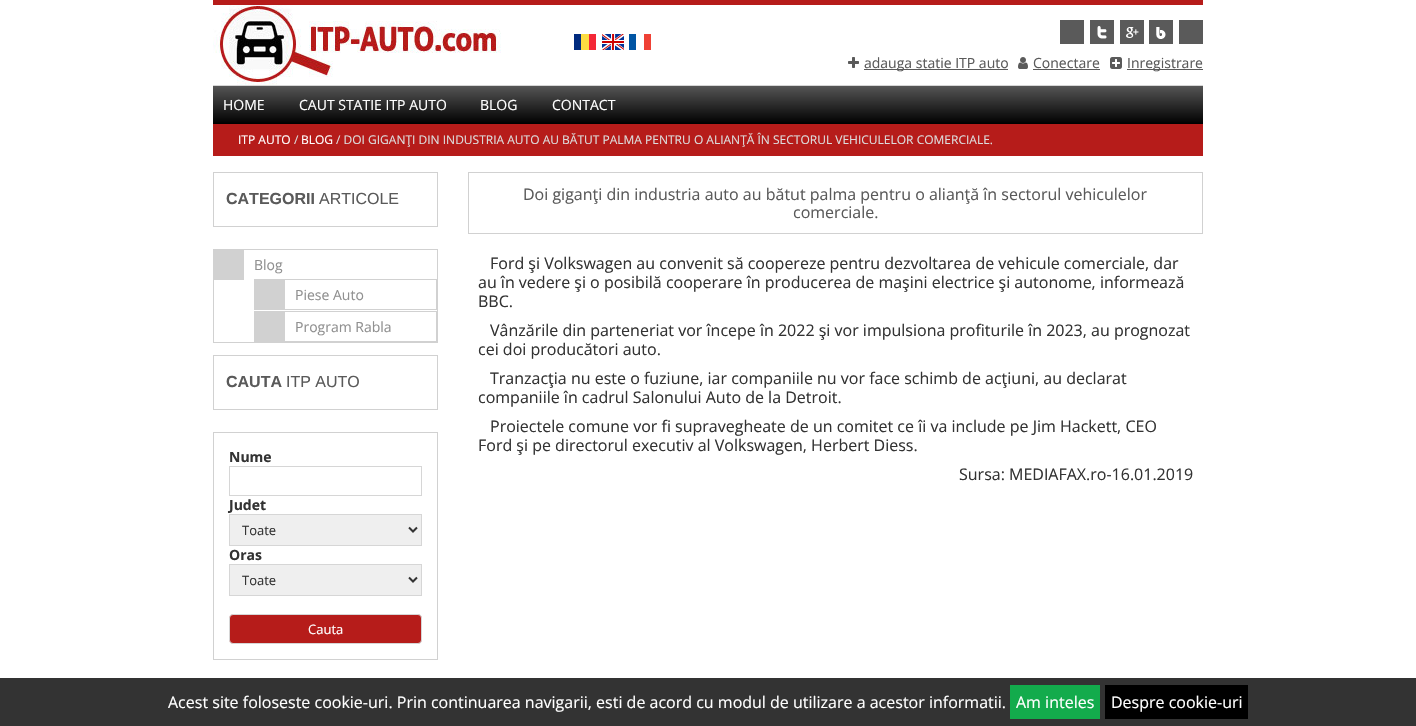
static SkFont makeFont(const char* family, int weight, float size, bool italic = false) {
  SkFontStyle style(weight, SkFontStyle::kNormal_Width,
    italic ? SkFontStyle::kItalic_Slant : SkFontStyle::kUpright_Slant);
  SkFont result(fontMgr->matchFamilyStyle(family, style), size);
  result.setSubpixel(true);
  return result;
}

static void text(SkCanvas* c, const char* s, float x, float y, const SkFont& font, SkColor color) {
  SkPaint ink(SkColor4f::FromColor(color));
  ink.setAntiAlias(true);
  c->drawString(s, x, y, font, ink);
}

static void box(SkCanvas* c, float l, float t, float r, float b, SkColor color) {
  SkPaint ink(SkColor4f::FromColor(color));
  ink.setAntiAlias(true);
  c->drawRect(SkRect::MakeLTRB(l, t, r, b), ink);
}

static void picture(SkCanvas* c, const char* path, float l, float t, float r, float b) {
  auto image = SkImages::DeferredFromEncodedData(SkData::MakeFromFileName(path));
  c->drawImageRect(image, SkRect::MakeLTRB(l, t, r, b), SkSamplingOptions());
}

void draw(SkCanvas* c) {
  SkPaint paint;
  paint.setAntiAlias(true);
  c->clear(0xffffffff);
  box(c, 213, 0, 1203, 5, 0xffb61c1a);
  picture(c, "img_01.png", 213, 5, 501, 85);
  picture(c, "img_02.png", 574, 34, 596, 50);
  picture(c, "img_03.png", 602, 34, 624, 50);
  picture(c, "img_04.png", 629, 34, 651, 50);
  box(c, 1060, 20, 1084, 44, 0xff5a5a5a);
  box(c, 1090, 20, 1114, 44, 0xff5a5a5a);
  picture(c, "img_05.png", 1097, 26, 1107, 39);
  box(c, 1120, 20, 1144, 44, 0xff5a5a5a);
  picture(c, "img_06.png", 1126, 27, 1139, 38);
  box(c, 1149, 20, 1173, 44, 0xff5a5a5a);
  picture(c, "img_07.png", 1156, 27, 1166, 39);
  box(c, 1179, 20, 1203, 44, 0xff5a5a5a);
  picture(c, "img_08.png", 848, 57, 859, 68);
  box(c, 864, 69, 1008, 70, 0xff5a5a5a);
  SkFont face1 = makeFont("Open Sans", 400, 14);
  text(c, "adauga statie ITP auto", 864, 68, face1, 0xff5a5a5a);
  picture(c, "img_09.png", 1018, 57, 1028, 69);
  text(c, "Conectare", 1033, 68, face1, 0xff5a5a5a);
  box(c, 1033, 69, 1100, 70, 0xff5a5a5a);
  picture(c, "img_10.png", 1110, 57, 1122, 69);
  box(c, 1127, 69, 1203, 70, 0xff5a5a5a);
  text(c, "Inregistrare", 1127, 68, face1, 0xff5a5a5a);
  {
    const SkColor colors[] = {0xff555555, 0xff000000};
    const float stops[] = {0, 1};
    const SkPoint ends[] = {{708, 86}, {708, 124}};
    paint.setShader(SkGradientShader::MakeLinear(ends, colors, stops, 2, SkTileMode::kClamp));
    paint.setAlpha(255);
  }
  c->drawRect(SkRect::MakeLTRB(213, 86, 1203, 124), paint);
  box(c, 213, 85, 1203, 86, 0xffd6d6d6);
  text(c, "HOME", 223, 110, face1, 0xffffffff);
  text(c, "CAUT STATIE ITP AUTO", 299, 110, face1, 0xffffffff);
  text(c, "BLOG", 480, 110, face1, 0xffffffff);
  text(c, "CONTACT", 552, 110, face1, 0xffffffff);
  box(c, 213, 124, 1203, 156, 0xffb61c1a);
  SkFont face2 = makeFont("Open Sans", 400, 12);
  text(c, "ITP AUTO", 238, 144, face2, 0xffffffff);
  text(c, "/", 294, 144, face2, 0xffdddddd);
  text(c, "BLOG", 301, 144, face2, 0xffffffff);
  text(c, "/ DOI GIGANŢI DIN INDUSTRIA AUTO AU BĂTUT PALMA PENTRU O ALIANŢĂ ÎN SECTORUL VEHICULELOR COMERCIALE.", 336, 144, face2, 0xffdddddd);
  paint.setStyle(SkPaint::kStroke_Style);
  paint.setStrokeWidth(1);
  paint.setShader(nullptr);
  paint.setColor(0xffd1d1d1);
  c->drawRect(SkRect::MakeLTRB(213.5f, 172.5f, 437.5f, 226.5f), paint);
  SkFont face3 = makeFont("Liberation Sans", 700, 16);
  text(c, "CATEGORII", 226, 204, face3, 0xff5a5a5a);
  SkFont face4 = makeFont("Liberation Sans", 400, 16);
  text(c, "ARTICOLE", 319, 204, face4, 0xff5a5a5a);
  c->drawRect(SkRect::MakeLTRB(213.5f, 249.5f, 437.5f, 342.5f), paint);
  box(c, 214, 250, 244, 280, 0xffd1d1d1);
  text(c, "Blog", 254, 270, face1, 0xff909090);
  c->drawRect(SkRect::MakeLTRB(254.5f, 279.5f, 436.5f, 309.5f), paint);
  box(c, 255, 280, 285, 309, 0xffd1d1d1);
  text(c, "Piese Auto", 295, 300, face1, 0xff909090);
  c->drawRect(SkRect::MakeLTRB(254.5f, 311.5f, 436.5f, 341.5f), paint);
  box(c, 255, 312, 285, 341, 0xffd1d1d1);
  text(c, "Program Rabla", 295, 332, face1, 0xff909090);
  c->drawRect(SkRect::MakeLTRB(213.5f, 355.5f, 437.5f, 409.5f), paint);
  text(c, "CAUTA", 226, 387, face3, 0xff5a5a5a);
  text(c, "ITP AUTO", 286, 387, face4, 0xff5a5a5a);
  c->drawRect(SkRect::MakeLTRB(213.5f, 432.5f, 437.5f, 659.5f), paint);
  SkFont face5 = makeFont("Open Sans", 700, 14);
  text(c, "Nume", 229, 462, face5, 0xff333333);
  paint.setColor(0xffd6d6d6);
  c->drawRect(SkRect::MakeLTRB(229.5f, 466.5f, 421.5f, 495.5f), paint);
  text(c, "Judet", 229, 510, face5, 0xff333333);
  paint.setStyle(SkPaint::kFill_Style);
  paint.setColor(0xffefefef);
  c->drawRect(SkRect::MakeLTRB(229.5f, 514.5f, 421.5f, 545.5f), paint);
  paint.setStyle(SkPaint::kStroke_Style);
  paint.setColor(0xffd6d6d6);
  c->drawRect(SkRect::MakeLTRB(229.5f, 514.5f, 421.5f, 545.5f), paint);
  paint.setStrokeWidth(2);
  paint.setColor(0xff333333);
  c->drawPath(SkPathBuilder().moveTo(409, 527.5f).lineTo(413, 531.5f).lineTo(417, 527.5f).detach(), paint);
  SkFont face6 = makeFont("Open Sans", 400, 13);
  text(c, "Toate", 242, 535, face6, 0xff333333);
  text(c, "Oras", 229, 560, face5, 0xff333333);
  paint.setStyle(SkPaint::kFill_Style);
  paint.setColor(0xffefefef);
  c->drawRect(SkRect::MakeLTRB(229.5f, 564.5f, 421.5f, 595.5f), paint);
  paint.setStyle(SkPaint::kStroke_Style);
  paint.setStrokeWidth(1);
  paint.setColor(0xffd6d6d6);
  c->drawRect(SkRect::MakeLTRB(229.5f, 564.5f, 421.5f, 595.5f), paint);
  paint.setStrokeWidth(2);
  paint.setColor(0xff333333);
  c->drawPath(SkPathBuilder().moveTo(409, 577.5f).lineTo(413, 581.5f).lineTo(417, 577.5f).detach(), paint);
  text(c, "Toate", 242, 585, face6, 0xff333333);
  paint.setStyle(SkPaint::kFill_Style);
  paint.setColor(0xffb61c1a);
  c->drawRoundRect(SkRect::MakeLTRB(229.5f, 614.5f, 421.5f, 643.5f), 3.5f, 3.5f, paint);
  paint.setStyle(SkPaint::kStroke_Style);
  paint.setStrokeWidth(1);
  paint.setColor(0xffd6d6d6);
  c->drawRoundRect(SkRect::MakeLTRB(229.5f, 614.5f, 421.5f, 643.5f), 3.5f, 3.5f, paint);
  text(c, "Cauta", 308, 634, face6, 0xffffffff);
  paint.setColor(0xffd1d1d1);
  c->drawRect(SkRect::MakeLTRB(468.5f, 172.5f, 1202.5f, 233.5f), paint);
  SkFont face7 = makeFont("Open Sans", 400, 16);
  text(c, "Doi giganţi din industria auto au bătut palma pentru o alianţă în sectorul vehiculelor", 523, 200, face7, 0xff5a5a5a);
  text(c, "comerciale.", 793, 218, face7, 0xff5a5a5a);
  text(c, "Ford şi Volkswagen au convenit să coopereze pentru dezvoltarea de vehicule comerciale, dar", 490, 269, face7, 0xff333333);
  text(c, "au în vedere şi o posibilă cooperare în producerea de maşini electrice şi autonome, informează", 478, 288, face7, 0xff333333);
  text(c, "BBC.", 478, 307, face7, 0xff333333);
  text(c, "Vânzările din parteneriat vor începe în 2022 şi vor impulsiona profiturile în 2023, au prognozat", 490, 336, face7, 0xff333333);
  text(c, "cei doi producători auto.", 478, 355, face7, 0xff333333);
  text(c, "Tranzacţia nu este o fuziune, iar companiile nu vor face schimb de acţiuni, au declarat", 490, 384, face7, 0xff333333);
  text(c, "companiile în cadrul Salonului Auto de la Detroit.", 478, 403, face7, 0xff333333);
  text(c, "Proiectele comune vor fi supravegheate de un comitet ce îi va include pe Jim Hackett, CEO", 490, 432, face7, 0xff333333);
  text(c, "Ford şi pe directorul executiv al Volkswagen, Herbert Diess.", 478, 451, face7, 0xff333333);
  text(c, "Sursa: MEDIAFAX.ro-16.01.2019", 959, 480, face7, 0xff333333);
  box(c, 0, 678, 1416, 726, 0xff333333);
  text(c, "Acest site foloseste cookie-uri. Prin continuarea navigarii, esti de acord cu modul de utilizare a acestor informatii.", 168, 708, face7, 0xffffffff);
  box(c, 1010, 685, 1100, 719, 0xff13ab4c);
  text(c, "Am inteles", 1016, 708, face7, 0xffffffff);
  box(c, 1105, 685, 1248, 719, 0xff000000);
  text(c, "Despre cookie-uri", 1111, 708, face7, 0xffffffff);
}
